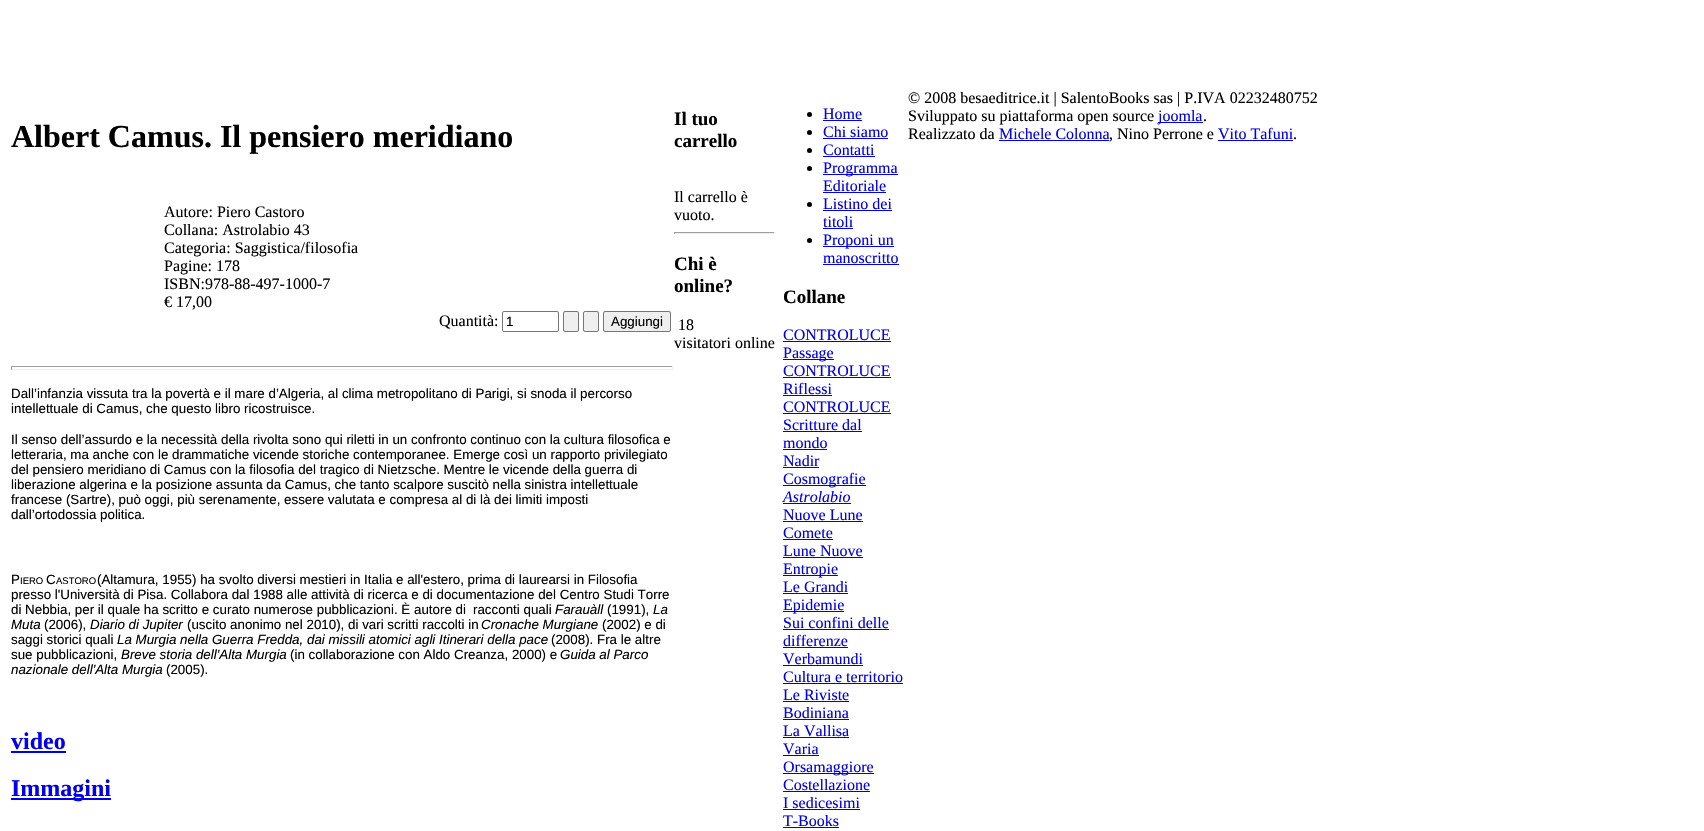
static SkFont makeFont(const char* family, int weight, float size, bool italic = false) {
  SkFontStyle style(weight, SkFontStyle::kNormal_Width,
    italic ? SkFontStyle::kItalic_Slant : SkFontStyle::kUpright_Slant);
  SkFont result(fontMgr->matchFamilyStyle(family, style), size);
  result.setSubpixel(true);
  return result;
}

static void text(SkCanvas* c, const char* s, float x, float y, const SkFont& font, SkColor color) {
  SkPaint ink(SkColor4f::FromColor(color));
  ink.setAntiAlias(true);
  c->drawString(s, x, y, font, ink);
}

static void box(SkCanvas* c, float l, float t, float r, float b, SkColor color) {
  SkPaint ink(SkColor4f::FromColor(color));
  ink.setAntiAlias(true);
  c->drawRect(SkRect::MakeLTRB(l, t, r, b), ink);
}

void draw(SkCanvas* c) {
  SkPaint paint;
  paint.setAntiAlias(true);
  c->clear(0xffffffff);
  SkFont face1 = makeFont("Liberation Serif", 700, 32);
  text(c, "Albert Camus. Il pensiero meridiano", 11, 147, face1, 0xff000000);
  SkFont face2 = makeFont("Liberation Serif", 400, 16);
  text(c, "Autore: Piero Castoro", 164, 217, face2, 0xff000000);
  text(c, "Collana: Astrolabio 43", 164, 235, face2, 0xff000000);
  text(c, "Categoria: Saggistica/filosofia", 164, 253, face2, 0xff000000);
  text(c, "Pagine: 178", 164, 271, face2, 0xff000000);
  text(c, "ISBN:978-88-497-1000-7", 164, 289, face2, 0xff000000);
  text(c, "€ 17,00", 164, 307, face2, 0xff000000);
  text(c, "Quantità:", 439, 326, face2, 0xff000000);
  paint.setStyle(SkPaint::kStroke_Style);
  paint.setStrokeWidth(1);
  paint.setColor(0xff767676);
  c->drawRoundRect(SkRect::MakeLTRB(502.5f, 311.5f, 558.5f, 331.5f), 1.5f, 1.5f, paint);
  SkFont face3 = makeFont("Liberation Sans", 400, 13.35f);
  text(c, "1", 506, 326, face3, 0xff000000);
  paint.setStyle(SkPaint::kFill_Style);
  paint.setColor(0xffefefef);
  c->drawRoundRect(SkRect::MakeLTRB(563.5f, 311.5f, 578.5f, 331.5f), 1.5f, 1.5f, paint);
  paint.setStyle(SkPaint::kStroke_Style);
  paint.setColor(0xff767676);
  c->drawRoundRect(SkRect::MakeLTRB(563.5f, 311.5f, 578.5f, 331.5f), 1.5f, 1.5f, paint);
  paint.setStyle(SkPaint::kFill_Style);
  paint.setColor(0xffefefef);
  c->drawRoundRect(SkRect::MakeLTRB(583.5f, 311.5f, 598.5f, 331.5f), 1.5f, 1.5f, paint);
  paint.setStyle(SkPaint::kStroke_Style);
  paint.setColor(0xff767676);
  c->drawRoundRect(SkRect::MakeLTRB(583.5f, 311.5f, 598.5f, 331.5f), 1.5f, 1.5f, paint);
  paint.setStyle(SkPaint::kFill_Style);
  paint.setColor(0xffefefef);
  c->drawRoundRect(SkRect::MakeLTRB(603.5f, 311.5f, 670.5f, 331.5f), 1.5f, 1.5f, paint);
  paint.setStyle(SkPaint::kStroke_Style);
  paint.setColor(0xff767676);
  c->drawRoundRect(SkRect::MakeLTRB(603.5f, 311.5f, 670.5f, 331.5f), 1.5f, 1.5f, paint);
  text(c, "Aggiungi", 611, 326, face3, 0xff000000);
  box(c, 11, 366, 673, 367, 0xff9f9f9f);
  box(c, 672, 366, 673, 370, 0xffeeeeee);
  box(c, 11, 369, 673, 370, 0xffeeeeee);
  box(c, 11, 366, 12, 370, 0xff9f9f9f);
  text(c, "Dall’infanzia vissuta tra la povertà e il mare d’Algeria, al clima metropolitano di Parigi, si snoda il percorso", 11, 398, face3, 0xff000000);
  text(c, "intellettuale di Camus, che questo libro ricostruisce.", 11, 413, face3, 0xff000000);
  text(c, "Il senso dell’assurdo e la necessità della rivolta sono qui riletti in un confronto continuo con la cultura filosofica e", 11, 444, face3, 0xff000000);
  text(c, "letteraria, ma anche con le drammatiche vicende storiche contemporanee. Emerge così un rapporto privilegiato", 11, 459, face3, 0xff000000);
  text(c, "del pensiero meridiano di Camus con la filosofia del tragico di Nietzsche. Mentre le vicende della guerra di", 11, 474, face3, 0xff000000);
  text(c, "liberazione algerina e la posizione assunta da Camus, che tanto scalpore suscitò nella sinistra intellettuale", 11, 489, face3, 0xff000000);
  text(c, "francese (Sartre), può oggi, più serenamente, essere valutata e compresa al di là dei limiti imposti", 11, 504, face3, 0xff000000);
  text(c, "dall’ortodossia politica.", 11, 519, face3, 0xff000000);
  text(c, "P", 11, 584, face3, 0xff000000);
  SkFont face4 = makeFont("Liberation Sans", 400, 9.5f);
  text(c, "IERO", 20, 584, face4, 0xff000000);
  text(c, "C", 46, 584, face3, 0xff000000);
  text(c, "ASTORO", 56, 584, face4, 0xff000000);
  text(c, "(Altamura, 1955) ha svolto diversi mestieri in Italia e all'estero, prima di laurearsi in Filosofia", 97, 584, face3, 0xff000000);
  text(c, "presso l'Università di Pisa. Collabora dal 1988 alle attività di ricerca e di documentazione del Centro Studi Torre", 11, 599, face3, 0xff000000);
  text(c, "di Nebbia, per il quale ha scritto e curato numerose pubblicazioni. È autore di", 11, 614, face3, 0xff000000);
  text(c, "racconti quali", 473, 614, face3, 0xff000000);
  SkFont face5 = makeFont("Liberation Sans", 400, 13.35f, true);
  text(c, "Farauàll", 555, 614, face5, 0xff000000);
  text(c, "(1991),", 607, 614, face3, 0xff000000);
  text(c, "La", 653, 614, face5, 0xff000000);
  text(c, "Muta", 11, 629, face5, 0xff000000);
  text(c, "(2006),", 44, 629, face3, 0xff000000);
  text(c, "Diario di Jupiter", 90, 629, face5, 0xff000000);
  text(c, "(uscito anonimo nel 2010), di vari scritti raccolti in", 187, 629, face3, 0xff000000);
  text(c, "Cronache Murgiane", 481, 629, face5, 0xff000000);
  text(c, "(2002) e di", 602, 629, face3, 0xff000000);
  text(c, "saggi storici quali", 11, 644, face3, 0xff000000);
  text(c, "La Murgia nella Guerra Fredda, dai missili atomici agli Itinerari della pace", 117, 644, face5, 0xff000000);
  text(c, "(2008). Fra le altre", 551, 644, face3, 0xff000000);
  text(c, "sue pubblicazioni,", 11, 659, face3, 0xff000000);
  text(c, "Breve storia dell'Alta Murgia", 121, 659, face5, 0xff000000);
  text(c, "(in collaborazione con Aldo Creanza, 2000) e", 290, 659, face3, 0xff000000);
  text(c, "Guida al Parco", 560, 659, face5, 0xff000000);
  text(c, "nazionale dell'Alta Murgia", 11, 674, face5, 0xff000000);
  text(c, "(2005).", 166, 674, face3, 0xff000000);
  SkFont face6 = makeFont("Liberation Serif", 700, 24);
  text(c, "video", 11, 749, face6, 0xff0000ee);
  box(c, 11, 751, 66, 753, 0xff0000ee);
  box(c, 11, 798, 111, 800, 0xff0000ee);
  text(c, "Immagini", 11, 796, face6, 0xff0000ee);
  SkFont face7 = makeFont("Liberation Serif", 700, 19);
  text(c, "Il tuo", 674, 125, face7, 0xff000000);
  text(c, "carrello", 674, 147, face7, 0xff000000);
  text(c, "Il carrello è", 674, 202, face2, 0xff000000);
  text(c, "vuoto.", 674, 220, face2, 0xff000000);
  box(c, 674, 232, 775, 233, 0xff9f9f9f);
  box(c, 774, 232, 775, 234, 0xffeeeeee);
  box(c, 674, 233, 775, 234, 0xffeeeeee);
  box(c, 674, 232, 675, 234, 0xff9f9f9f);
  text(c, "Chi è", 674, 270, face7, 0xff000000);
  text(c, "online?", 674, 292, face7, 0xff000000);
  text(c, "18", 678, 330, face2, 0xff000000);
  text(c, "visitatori online", 674, 348, face2, 0xff000000);
  paint.setStyle(SkPaint::kFill_Style);
  paint.setColor(0xff000000);
  c->drawCircle(809.5f, 114.5f, 2.5f, paint);
  text(c, "Home", 823, 119, face2, 0xff0000ee);
  box(c, 823, 120, 862, 121, 0xff0000ee);
  c->drawCircle(809.5f, 132.5f, 2.5f, paint);
  text(c, "Chi siamo", 823, 137, face2, 0xff0000ee);
  box(c, 823, 138, 888, 139, 0xff0000ee);
  c->drawCircle(809.5f, 150.5f, 2.5f, paint);
  text(c, "Contatti", 823, 155, face2, 0xff0000ee);
  box(c, 823, 156, 875, 157, 0xff0000ee);
  c->drawCircle(809.5f, 168.5f, 2.5f, paint);
  box(c, 823, 174, 898, 175, 0xff0000ee);
  text(c, "Programma", 823, 173, face2, 0xff0000ee);
  text(c, "Editoriale", 823, 191, face2, 0xff0000ee);
  box(c, 823, 192, 886, 193, 0xff0000ee);
  c->drawCircle(809.5f, 204.5f, 2.5f, paint);
  text(c, "Listino dei", 823, 209, face2, 0xff0000ee);
  box(c, 823, 210, 892, 211, 0xff0000ee);
  text(c, "titoli", 823, 227, face2, 0xff0000ee);
  box(c, 823, 228, 853, 229, 0xff0000ee);
  c->drawCircle(809.5f, 240.5f, 2.5f, paint);
  box(c, 823, 246, 894, 247, 0xff0000ee);
  text(c, "Proponi un", 823, 245, face2, 0xff0000ee);
  text(c, "manoscritto", 823, 263, face2, 0xff0000ee);
  box(c, 823, 264, 899, 265, 0xff0000ee);
  text(c, "Collane", 783, 303, face7, 0xff000000);
  text(c, "CONTROLUCE", 783, 340, face2, 0xff0000ee);
  box(c, 783, 341, 891, 342, 0xff0000ee);
  box(c, 783, 359, 834, 360, 0xff0000ee);
  text(c, "Passage", 783, 358, face2, 0xff0000ee);
  text(c, "CONTROLUCE", 783, 376, face2, 0xff0000ee);
  box(c, 783, 377, 891, 378, 0xff0000ee);
  text(c, "Riflessi", 783, 394, face2, 0xff0000ee);
  box(c, 783, 395, 832, 396, 0xff0000ee);
  text(c, "CONTROLUCE", 783, 412, face2, 0xff0000ee);
  box(c, 783, 413, 891, 414, 0xff0000ee);
  text(c, "Scritture dal", 783, 430, face2, 0xff0000ee);
  box(c, 783, 431, 862, 432, 0xff0000ee);
  text(c, "mondo", 783, 448, face2, 0xff0000ee);
  box(c, 783, 449, 827, 450, 0xff0000ee);
  text(c, "Nadir", 783, 466, face2, 0xff0000ee);
  box(c, 783, 467, 819, 468, 0xff0000ee);
  box(c, 783, 485, 866, 486, 0xff0000ee);
  text(c, "Cosmografie", 783, 484, face2, 0xff0000ee);
  SkFont face8 = makeFont("Liberation Serif", 400, 16, true);
  text(c, "Astrolabio", 783, 502, face8, 0xff0000ee);
  box(c, 783, 503, 851, 504, 0xff0000ee);
  text(c, "Nuove Lune", 783, 520, face2, 0xff0000ee);
  box(c, 783, 521, 863, 522, 0xff0000ee);
  text(c, "Comete", 783, 538, face2, 0xff0000ee);
  box(c, 783, 539, 833, 540, 0xff0000ee);
  text(c, "Lune Nuove", 783, 556, face2, 0xff0000ee);
  box(c, 783, 557, 863, 558, 0xff0000ee);
  box(c, 783, 575, 838, 576, 0xff0000ee);
  text(c, "Entropie", 783, 574, face2, 0xff0000ee);
  text(c, "Le Grandi", 783, 592, face2, 0xff0000ee);
  box(c, 783, 593, 848, 594, 0xff0000ee);
  box(c, 783, 611, 844, 612, 0xff0000ee);
  text(c, "Epidemie", 783, 610, face2, 0xff0000ee);
  text(c, "Sui confini delle", 783, 628, face2, 0xff0000ee);
  box(c, 783, 629, 889, 630, 0xff0000ee);
  text(c, "differenze", 783, 646, face2, 0xff0000ee);
  box(c, 783, 647, 848, 648, 0xff0000ee);
  text(c, "Verbamundi", 783, 664, face2, 0xff0000ee);
  box(c, 783, 665, 863, 666, 0xff0000ee);
  text(c, "Cultura e territorio", 783, 682, face2, 0xff0000ee);
  box(c, 783, 683, 903, 684, 0xff0000ee);
  text(c, "Le Riviste", 783, 700, face2, 0xff0000ee);
  box(c, 783, 701, 849, 702, 0xff0000ee);
  text(c, "Bodiniana", 783, 718, face2, 0xff0000ee);
  box(c, 783, 719, 849, 720, 0xff0000ee);
  text(c, "La Vallisa", 783, 736, face2, 0xff0000ee);
  box(c, 783, 737, 849, 738, 0xff0000ee);
  text(c, "Varia", 783, 754, face2, 0xff0000ee);
  box(c, 783, 755, 819, 756, 0xff0000ee);
  box(c, 783, 773, 874, 774, 0xff0000ee);
  text(c, "Orsamaggiore", 783, 772, face2, 0xff0000ee);
  text(c, "Costellazione", 783, 790, face2, 0xff0000ee);
  box(c, 783, 791, 870, 792, 0xff0000ee);
  text(c, "I sedicesimi", 783, 808, face2, 0xff0000ee);
  box(c, 783, 809, 860, 810, 0xff0000ee);
  text(c, "T-Books", 783, 826, face2, 0xff0000ee);
  box(c, 783, 827, 839, 828, 0xff0000ee);
  text(c, "© 2008 besaeditrice.it | SalentoBooks sas | P.IVA 02232480752", 908, 103, face2, 0xff000000);
  text(c, "Sviluppato su piattaforma open source", 908, 121, face2, 0xff000000);
  box(c, 1158, 122, 1203, 123, 0xff0000ee);
  text(c, "joomla", 1158, 121, face2, 0xff0000ee);
  text(c, ".", 1203, 121, face2, 0xff000000);
  text(c, "Realizzato da", 908, 139, face2, 0xff000000);
  text(c, "Michele Colonna", 999, 139, face2, 0xff0000ee);
  box(c, 999, 140, 1109, 141, 0xff0000ee);
  text(c, ", Nino Perrone e", 1109, 139, face2, 0xff000000);
  text(c, "Vito Tafuni", 1218, 139, face2, 0xff0000ee);
  box(c, 1218, 140, 1293, 141, 0xff0000ee);
  text(c, ".", 1293, 139, face2, 0xff000000);
}
